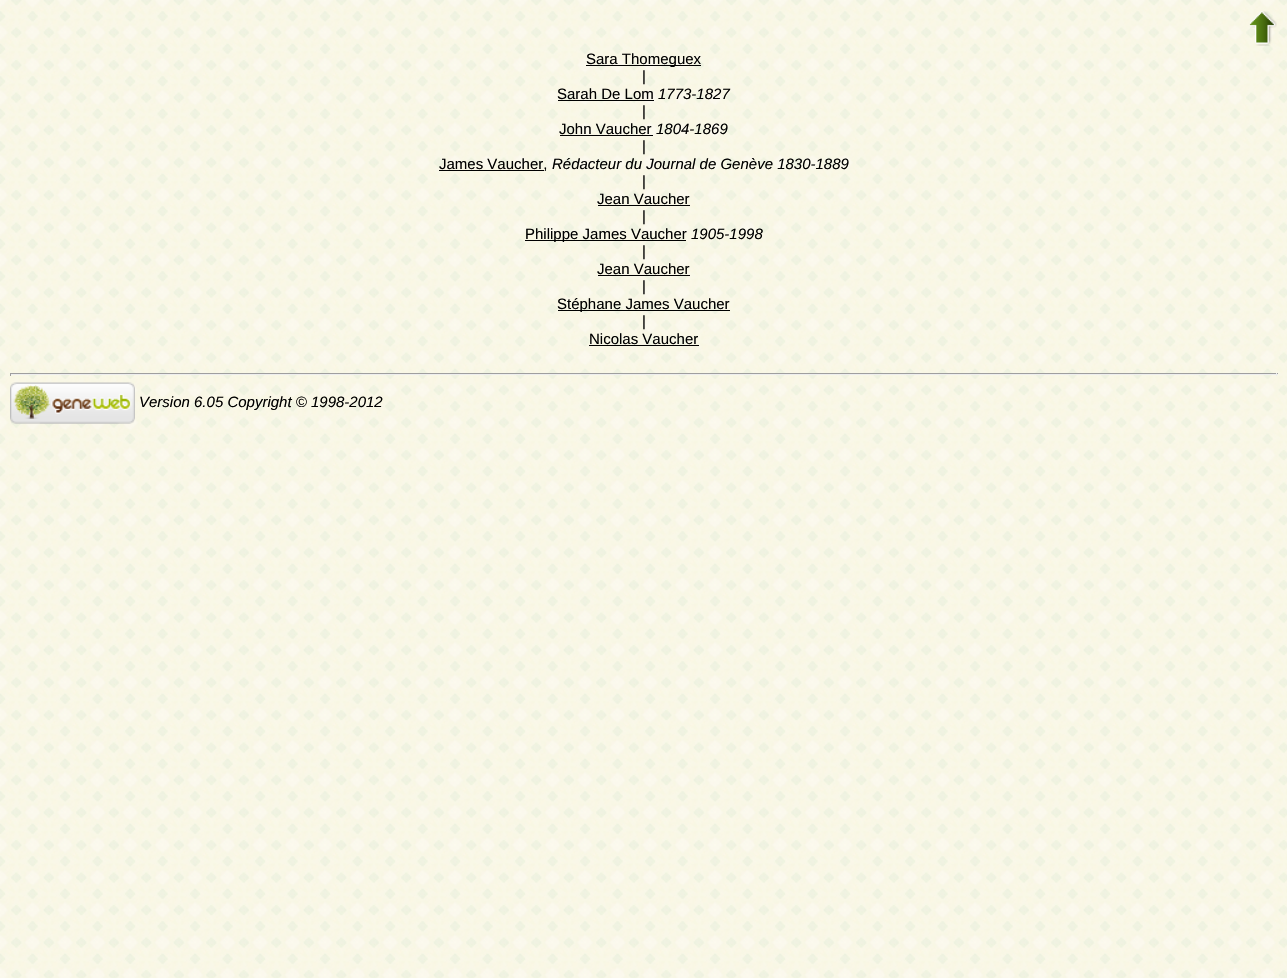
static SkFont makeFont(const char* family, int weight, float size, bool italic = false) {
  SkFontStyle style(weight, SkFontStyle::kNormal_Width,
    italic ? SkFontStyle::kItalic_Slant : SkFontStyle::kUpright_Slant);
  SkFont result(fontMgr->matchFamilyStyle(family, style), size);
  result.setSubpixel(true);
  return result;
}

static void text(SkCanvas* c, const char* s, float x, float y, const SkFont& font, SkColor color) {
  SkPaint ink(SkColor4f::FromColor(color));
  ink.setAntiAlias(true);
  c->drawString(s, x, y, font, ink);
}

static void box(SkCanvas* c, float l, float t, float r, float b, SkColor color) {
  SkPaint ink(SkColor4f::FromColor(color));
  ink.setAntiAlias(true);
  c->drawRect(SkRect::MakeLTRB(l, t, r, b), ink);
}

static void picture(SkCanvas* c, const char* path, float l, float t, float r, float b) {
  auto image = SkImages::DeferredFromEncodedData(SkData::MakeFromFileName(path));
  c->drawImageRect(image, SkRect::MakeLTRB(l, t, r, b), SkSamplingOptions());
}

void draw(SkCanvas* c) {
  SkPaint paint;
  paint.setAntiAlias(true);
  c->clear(0xffffffff);
  picture(c, "img_01.png", 0, 0, 1287, 978);
  picture(c, "img_02.png", 1249, 11, 1277, 46);
  box(c, 586, 65, 701, 66, 0xff000000);
  SkFont face1 = makeFont("Liberation Sans", 400, 15);
  text(c, "Sara Thomeguex", 586, 64, face1, 0xff000000);
  text(c, "|", 642, 81, face1, 0xff000000);
  text(c, "Sarah De Lom", 557, 99, face1, 0xff000000);
  box(c, 558, 100, 654, 101, 0xff000000);
  SkFont face2 = makeFont("Liberation Sans", 400, 15, true);
  text(c, "1773-1827", 658, 99, face2, 0xff000000);
  text(c, "|", 642, 116, face1, 0xff000000);
  text(c, "John Vaucher", 559, 134, face1, 0xff000000);
  box(c, 560, 135, 653, 136, 0xff000000);
  text(c, "1804-1869", 656, 134, face2, 0xff000000);
  text(c, "|", 642, 151, face1, 0xff000000);
  box(c, 439, 170, 544, 171, 0xff000000);
  text(c, "James Vaucher,", 439, 169, face1, 0xff000000);
  text(c, "Rédacteur du Journal de Genève 1830-1889", 552, 169, face2, 0xff000000);
  text(c, "|", 642, 186, face1, 0xff000000);
  text(c, "Jean Vaucher", 597, 204, face1, 0xff000000);
  box(c, 598, 205, 690, 206, 0xff000000);
  text(c, "|", 642, 221, face1, 0xff000000);
  box(c, 525, 240, 686, 241, 0xff000000);
  text(c, "Philippe James Vaucher", 525, 239, face1, 0xff000000);
  text(c, "1905-1998", 691, 239, face2, 0xff000000);
  text(c, "|", 642, 256, face1, 0xff000000);
  text(c, "Jean Vaucher", 597, 274, face1, 0xff000000);
  box(c, 598, 275, 690, 276, 0xff000000);
  text(c, "|", 642, 291, face1, 0xff000000);
  box(c, 558, 310, 730, 311, 0xff000000);
  text(c, "Stéphane James Vaucher", 557, 309, face1, 0xff000000);
  text(c, "|", 642, 326, face1, 0xff000000);
  text(c, "Nicolas Vaucher", 589, 344, face1, 0xff000000);
  box(c, 589, 345, 699, 346, 0xff000000);
  box(c, 10, 373, 1278, 374, 0xff9f9f9f);
  box(c, 1276, 373, 1277, 376, 0xffeeeeee);
  box(c, 10, 374, 1278, 375, 0xffeeeeee);
  box(c, 10, 373, 11, 376, 0xff9f9f9f);
  picture(c, "img_03.png", 10, 382, 135, 424);
  text(c, "Version 6.05 Copyright © 1998-2012", 139, 407, face2, 0xff000000);
}
